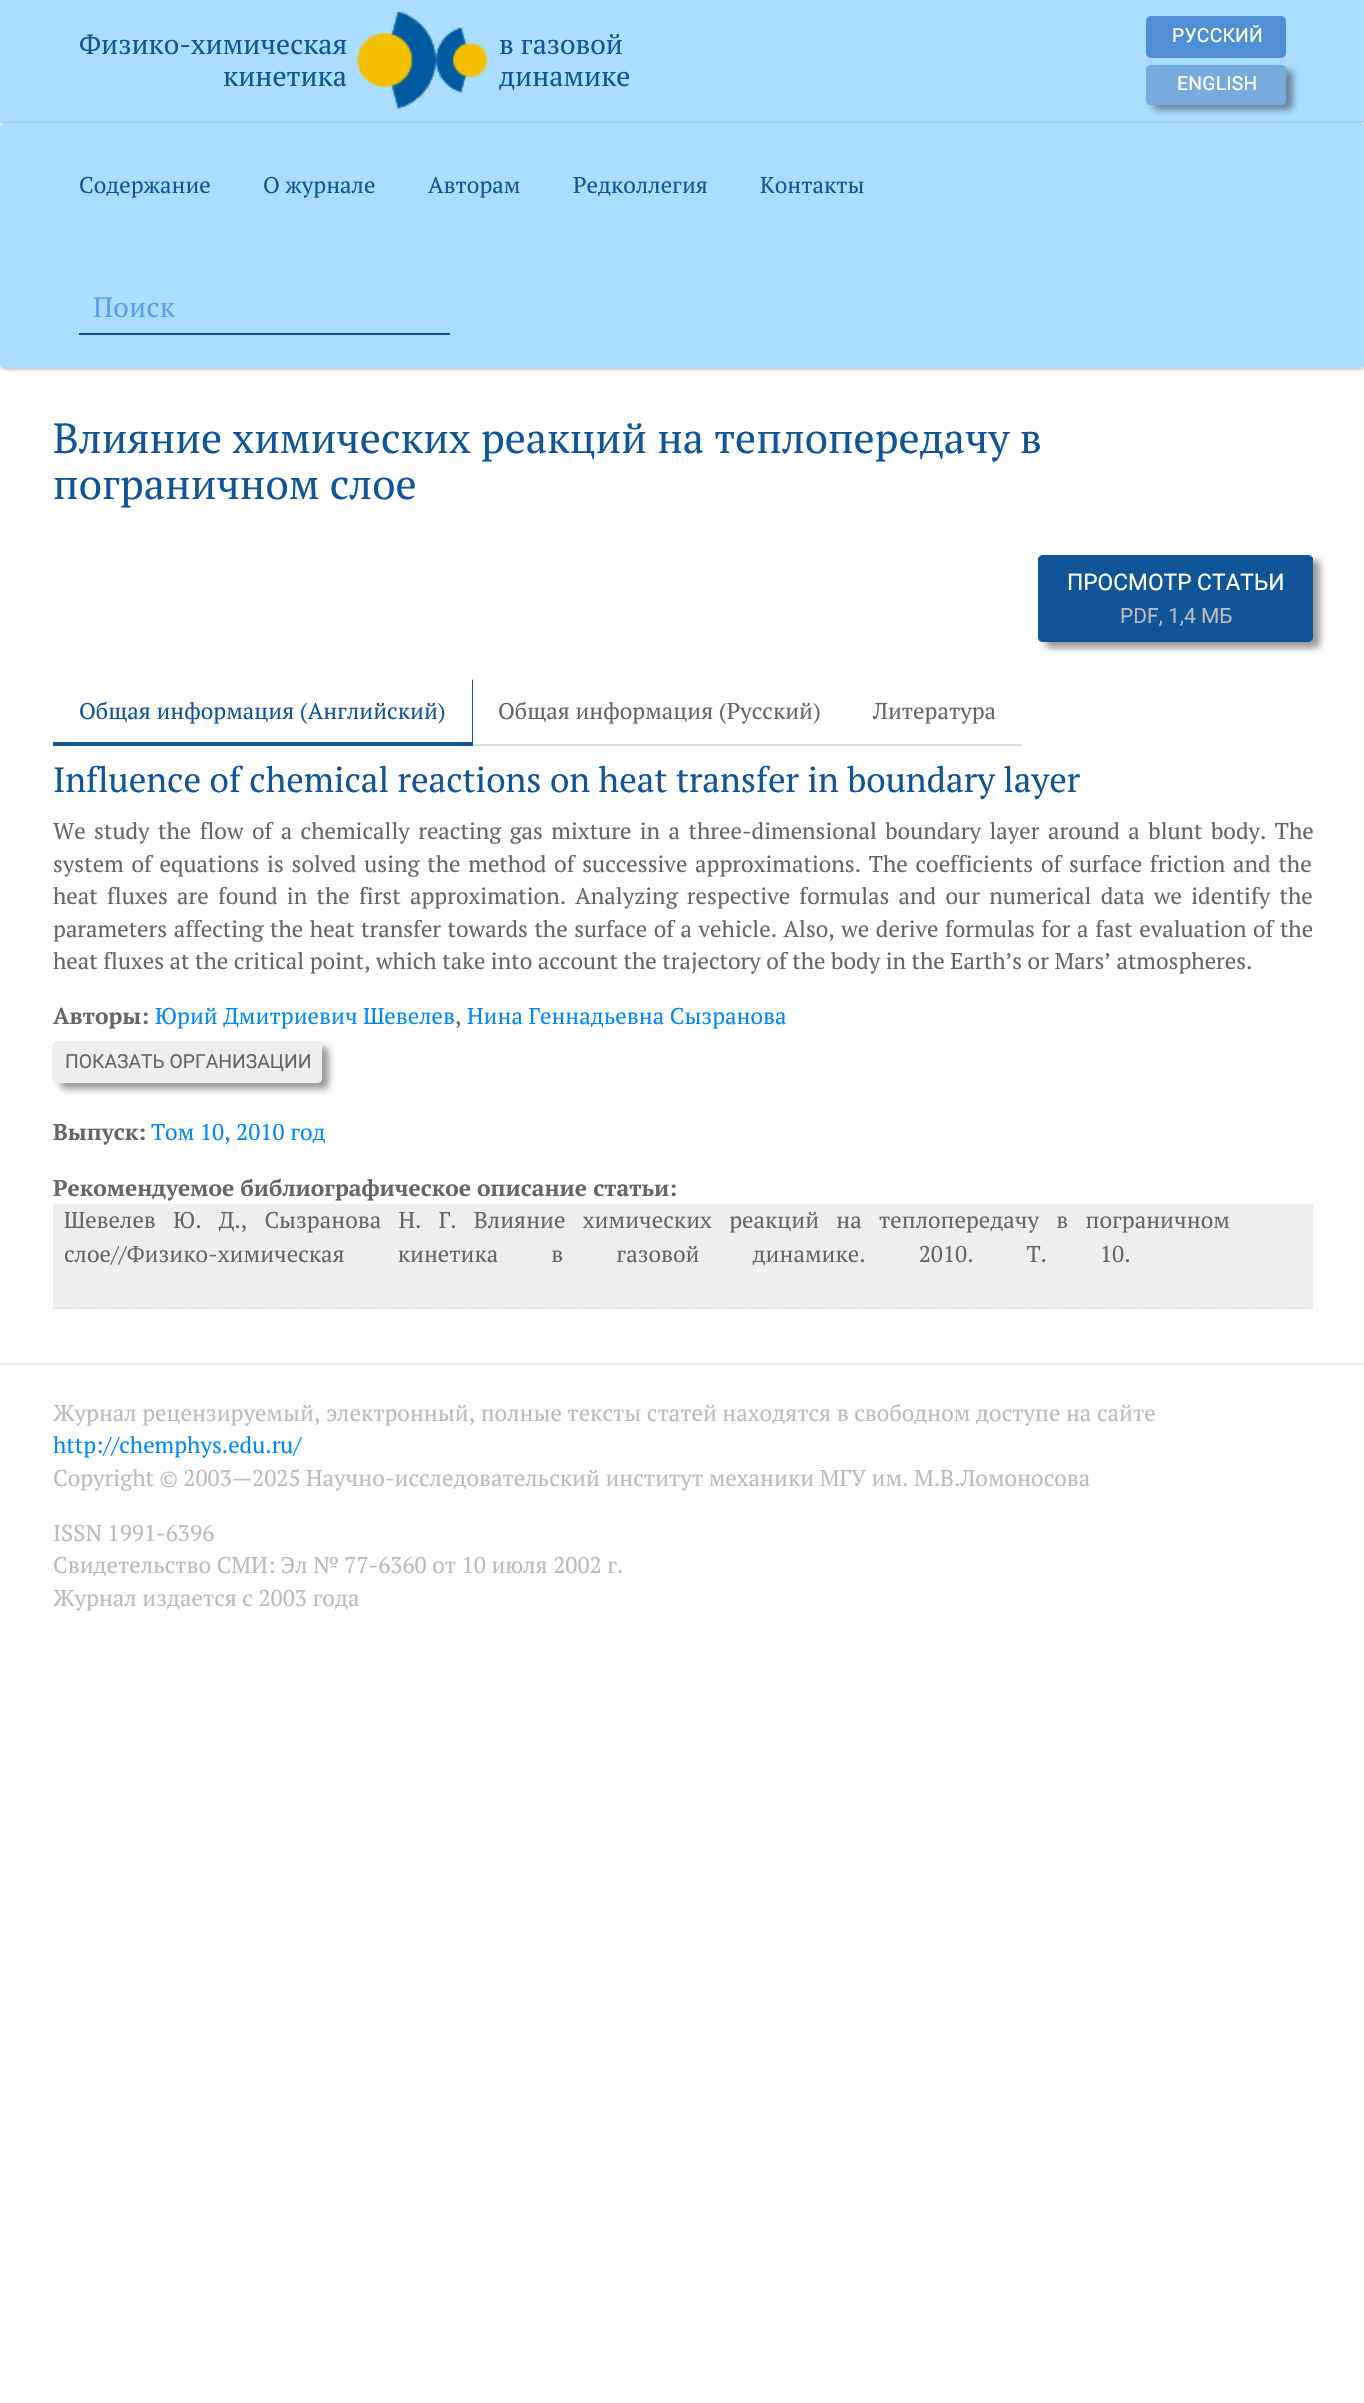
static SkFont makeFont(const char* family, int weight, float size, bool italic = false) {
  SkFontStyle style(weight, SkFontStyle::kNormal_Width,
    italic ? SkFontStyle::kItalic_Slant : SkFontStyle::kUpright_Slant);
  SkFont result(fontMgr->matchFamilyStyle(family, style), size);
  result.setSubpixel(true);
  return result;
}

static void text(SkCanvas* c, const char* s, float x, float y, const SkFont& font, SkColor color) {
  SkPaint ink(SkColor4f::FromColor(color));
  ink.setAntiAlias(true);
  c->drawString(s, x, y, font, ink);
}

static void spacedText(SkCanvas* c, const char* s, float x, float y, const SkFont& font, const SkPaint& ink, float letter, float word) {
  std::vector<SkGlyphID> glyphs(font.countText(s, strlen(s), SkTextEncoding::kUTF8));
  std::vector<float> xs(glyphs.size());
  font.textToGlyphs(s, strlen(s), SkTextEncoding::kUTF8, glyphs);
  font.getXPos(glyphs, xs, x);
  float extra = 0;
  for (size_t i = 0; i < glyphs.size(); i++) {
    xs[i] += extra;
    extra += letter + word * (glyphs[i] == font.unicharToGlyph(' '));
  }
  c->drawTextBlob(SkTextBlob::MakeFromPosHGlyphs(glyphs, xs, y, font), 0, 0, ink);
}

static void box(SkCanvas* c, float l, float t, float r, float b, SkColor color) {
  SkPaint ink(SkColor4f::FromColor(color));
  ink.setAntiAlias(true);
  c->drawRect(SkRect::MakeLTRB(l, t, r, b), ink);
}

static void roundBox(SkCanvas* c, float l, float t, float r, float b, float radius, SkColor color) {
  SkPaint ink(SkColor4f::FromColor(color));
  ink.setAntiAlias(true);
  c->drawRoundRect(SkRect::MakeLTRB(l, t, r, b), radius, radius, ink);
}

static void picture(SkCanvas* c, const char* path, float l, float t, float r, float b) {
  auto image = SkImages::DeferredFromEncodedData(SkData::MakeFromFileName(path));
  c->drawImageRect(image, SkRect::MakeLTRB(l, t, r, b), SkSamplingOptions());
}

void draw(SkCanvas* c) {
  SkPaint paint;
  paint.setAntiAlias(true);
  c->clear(0xffffffff);
  box(c, 0, 0, 1364, 123, 0xffaaddff);
  SkFont face1 = makeFont("PT Serif", 400, 28);
  text(c, "Физико-химическая", 79, 54, face1, 0xff115599);
  text(c, "кинетика", 223, 86, face1, 0xff115599);
  picture(c, "img_01.png", 357, 11, 489, 109);
  text(c, "в газовой", 499, 54, face1, 0xff115599);
  text(c, "динамике", 499, 86, face1, 0xff115599);
  roundBox(c, 1146, 16, 1286, 58, 5, 0xff4e90d3);
  SkFont face2 = makeFont("Roboto", 400, 19.3f);
  paint.setColor(0xffffffff);
  spacedText(c, "РУССКИЙ", 1172, 42, face2, paint, 0.25f, 0);
  paint.setColor(0x66000000);
  paint.setMaskFilter(SkMaskFilter::MakeBlur(kNormal_SkBlurStyle, 3.5f));
  c->drawRoundRect(SkRect::MakeLTRB(1153, 70, 1293, 110), 5, 5, paint);
  paint.setMaskFilter(nullptr);
  roundBox(c, 1146, 65, 1286, 105, 5, 0xff77aadd);
  c->save();
  c->clipPath(SkPathBuilder().moveTo(1151, 65).lineTo(1281, 65).cubicTo(1284, 65, 1286, 67, 1286, 70).lineTo(1286, 100).cubicTo(1286, 103, 1284, 105, 1281, 105).lineTo(1151, 105).cubicTo(1148, 105, 1146, 103, 1146, 100).lineTo(1146, 70).cubicTo(1146, 67, 1148, 65, 1151, 65).close().detach(), true);
  {
    const SkColor colors[] = {0xff77aadd, 0xff5f9bd7};
    const float stops[] = {0.8f, 0.81f};
    paint.setShader(SkGradientShader::MakeRadial({1217, 86}, 140, colors, stops, 2, SkTileMode::kClamp));
    paint.setAlpha(255);
  }
  c->drawPath(SkPathBuilder().moveTo(1146, 67).lineTo(1286, 67).lineTo(1286, 100).cubicTo(1286, 103, 1284, 105, 1281, 105).lineTo(1151, 105).cubicTo(1148, 105, 1146, 103, 1146, 100).close().detach(), paint);
  c->restore();
  paint.setShader(nullptr);
  paint.setColor(0xffffffff);
  spacedText(c, "ENGLISH", 1177, 90, face2, paint, 0.25f, 0);
  paint.setColor(0x4d000000);
  paint.setMaskFilter(SkMaskFilter::MakeBlur(kNormal_SkBlurStyle, 2));
  c->drawRoundRect(SkRect::MakeLTRB(0, 124, 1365, 369), 5, 5, paint);
  paint.setMaskFilter(nullptr);
  roundBox(c, 0, 123, 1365, 368, 5, 0xffaaddff);
  SkFont face3 = makeFont("PT Serif", 400, 22.75f);
  text(c, "Содержание", 79, 193, face3, 0xff115599);
  text(c, "О журнале", 263, 193, face3, 0xff115599);
  text(c, "Авторам", 428, 193, face3, 0xff115599);
  text(c, "Редколлегия", 573, 193, face3, 0xff115599);
  text(c, "Контакты", 760, 193, face3, 0xff115599);
  box(c, 79, 333, 450, 335, 0xff115599);
  paint.setColor(0xff57a1ec);
  spacedText(c, "Поиск", 93, 317, face1, paint, 0.25f, 0);
  SkFont face4 = makeFont("PT Serif", 400, 42);
  text(c, "Влияние химических реакций на теплопередачу в", 53, 453, face4, 0xff115599);
  text(c, "пограничном слое", 53, 499, face4, 0xff115599);
  paint.setColor(0x66000000);
  paint.setMaskFilter(SkMaskFilter::MakeBlur(kNormal_SkBlurStyle, 3.5f));
  c->drawRoundRect(SkRect::MakeLTRB(1045, 560, 1320, 648), 5, 5, paint);
  paint.setMaskFilter(nullptr);
  roundBox(c, 1038, 555, 1313, 642, 5, 0xff115599);
  c->save();
  c->clipPath(SkPathBuilder().moveTo(1043, 555).lineTo(1308, 555).cubicTo(1311, 555, 1313, 557, 1313, 560).lineTo(1313, 637).cubicTo(1313, 640, 1311, 642, 1308, 642).lineTo(1043, 642).cubicTo(1040, 642, 1038, 640, 1038, 637).lineTo(1038, 560).cubicTo(1038, 557, 1040, 555, 1043, 555).close().detach(), true);
  {
    const SkColor colors[] = {0xff115599, 0xff0e467d};
    const float stops[] = {0.8f, 0.81f};
    paint.setShader(SkGradientShader::MakeRadial({1176, 599}, 276, colors, stops, 2, SkTileMode::kClamp));
    paint.setAlpha(255);
  }
  c->drawPath(SkPathBuilder().moveTo(1038, 557).lineTo(1313, 557).lineTo(1313, 637).cubicTo(1313, 640, 1311, 642, 1308, 642).lineTo(1043, 642).cubicTo(1040, 642, 1038, 640, 1038, 637).close().detach(), paint);
  c->restore();
  SkFont face5 = makeFont("Roboto", 400, 22.75f);
  text(c, "ПРОСМОТР СТАТЬИ", 1067, 590, face5, 0xffffffff);
  SkFont face6 = makeFont("Roboto", 400, 21);
  text(c, "PDF, 1,4 МБ", 1120, 623, face6, 0xffbbbbbb);
  paint.setShader(nullptr);
  paint.setColor(0xff115599);
  c->drawPath(SkPathBuilder().moveTo(53, 742).lineTo(53, 746).lineTo(473, 746).lineTo(473, 682).cubicTo(473, 681, 473, 680, 472, 679).lineTo(472, 742).close().detach(), paint);
  text(c, "Общая информация (Английский)", 79, 719, face3, 0xff115599);
  box(c, 473, 744, 1022, 746, 0xffdddddd);
  text(c, "Общая информация (Русский)", 498, 719, face3, 0xff666666);
  text(c, "Литература", 873, 719, face3, 0xff666666);
  SkFont face7 = makeFont("PT Serif", 400, 35);
  text(c, "Influence of chemical reactions on heat transfer in boundary layer", 53, 792, face7, 0xff115599);
  paint.setColor(0xff666666);
  spacedText(c, "We study the flow of a chemically reacting gas mixture in a three-dimensional boundary layer around a blunt body. The", 53, 839, face3, paint, 0, 2.9f);
  spacedText(c, "system of equations is solved using the method of successive approximations. The coefficients of surface friction and the", 53, 872, face3, paint, 0, 2.25f);
  spacedText(c, "heat fluxes are found in the first approximation. Analyzing respective formulas and our numerical data we identify the", 53, 904, face3, paint, 0, 3.75f);
  spacedText(c, "parameters affecting the heat transfer towards the surface of a vehicle. Also, we derive formulas for a fast evaluation of the", 53, 937, face3, paint, 0, 1);
  text(c, "heat fluxes at the critical point, which take into account the trajectory of the body in the Earth’s or Mars’ atmospheres.", 53, 969, face3, 0xff666666);
  SkFont face8 = makeFont("PT Serif", 700, 22.75f);
  text(c, "Авторы:", 53, 1024, face8, 0xff666666);
  text(c, "Юрий Дмитриевич Шевелев", 155, 1024, face3, 0xff0088ff);
  text(c, ",", 455, 1024, face3, 0xff666666);
  text(c, "Нина Геннадьевна Сызранова", 467, 1024, face3, 0xff0088ff);
  paint.setColor(0x66000000);
  paint.setMaskFilter(SkMaskFilter::MakeBlur(kNormal_SkBlurStyle, 3.5f));
  c->drawRoundRect(SkRect::MakeLTRB(60, 1047, 329, 1089), 5, 5, paint);
  paint.setMaskFilter(nullptr);
  roundBox(c, 53, 1041, 322, 1083, 5, 0xffeeeeee);
  c->save();
  c->clipPath(SkPathBuilder().moveTo(58, 1041).lineTo(317, 1041).cubicTo(320, 1041, 322, 1043, 322, 1046).lineTo(322, 1078).cubicTo(322, 1081, 320, 1083, 317, 1083).lineTo(58, 1083).cubicTo(55, 1083, 53, 1081, 53, 1078).lineTo(53, 1046).cubicTo(53, 1043, 55, 1041, 58, 1041).close().detach(), true);
  {
    const SkColor colors[] = {0xffeeeeee, 0xffdfdfdf};
    const float stops[] = {0.8f, 0.81f};
    paint.setShader(SkGradientShader::MakeRadial({188, 1063}, 269, colors, stops, 2, SkTileMode::kClamp));
    paint.setAlpha(255);
  }
  c->drawPath(SkPathBuilder().moveTo(53, 1043).lineTo(322, 1043).lineTo(322, 1078).cubicTo(322, 1081, 320, 1083, 317, 1083).lineTo(58, 1083).cubicTo(55, 1083, 53, 1081, 53, 1078).close().detach(), paint);
  c->restore();
  paint.setShader(nullptr);
  paint.setColor(0xffeeeeee);
  c->drawPath(SkPathBuilder(SkPathFillType::kEvenOdd).moveTo(58, 1041).lineTo(317, 1041).cubicTo(320, 1041, 322, 1044, 322, 1046).lineTo(322, 1078).cubicTo(322, 1081, 320, 1083, 317, 1083).lineTo(58, 1083).cubicTo(55, 1083, 52, 1081, 52, 1078).lineTo(52, 1046).cubicTo(52, 1044, 55, 1041, 58, 1041).close().moveTo(58, 1043).lineTo(317, 1043).cubicTo(320, 1043, 322, 1045, 322, 1046).lineTo(322, 1078).cubicTo(322, 1081, 320, 1083, 317, 1083).lineTo(58, 1083).cubicTo(56, 1083, 54, 1081, 54, 1078).lineTo(54, 1046).cubicTo(54, 1045, 56, 1043, 58, 1043).close().detach(), paint);
  text(c, "ПОКАЗАТЬ ОРГАНИЗАЦИИ", 65, 1068, face2, 0xff666666);
  text(c, "Выпуск:", 53, 1140, face8, 0xff666666);
  text(c, "Том 10, 2010 год", 151, 1140, face3, 0xff0088ff);
  text(c, "Рекомендуемое библиографическое описание статьи:", 53, 1196, face8, 0xff666666);
  box(c, 53, 1204, 1313, 1309, 0xffeeeeee);
  paint.setStyle(SkPaint::kStroke_Style);
  paint.setStrokeWidth(1.8f);
  paint.setColor(0xffdddddd);
  paint.setPathEffect(SkDashPathEffect::Make({{1.75f, 1.75f}}, 0));
  c->drawPath(SkPathBuilder().moveTo(52.5f, 1308).lineTo(1312.5f, 1308).detach(), paint);
  paint.setPathEffect(nullptr);
  paint.setStyle(SkPaint::kFill_Style);
  paint.setColor(0xff666666);
  spacedText(c, "Шевелев Ю. Д., Сызранова Н. Г. Влияние химических реакций на теплопередачу в пограничном", 64, 1228, face3, paint, 0, 11.75f);
  spacedText(c, "слое//Физико-химическая кинетика в газовой динамике. 2010. Т. 10.", 64, 1262, face3, paint, 0, 47.5f);
  box(c, 0, 1363, 1364, 1365, 0xffeeeeee);
  text(c, "Журнал рецензируемый, электронный, полные тексты статей находятся в свободном доступе на сайте", 53, 1421, face3, 0xffbbbbbb);
  text(c, "http://chemphys.edu.ru/", 53, 1453, face3, 0xff0088ff);
  text(c, "Copyright © 2003—2025 Научно-исследовательский институт механики МГУ им. М.В.Ломоносова", 53, 1486, face3, 0xffbbbbbb);
  text(c, "ISSN 1991-6396", 53, 1541, face3, 0xffbbbbbb);
  text(c, "Свидетельство СМИ: Эл № 77-6360 от 10 июля 2002 г.", 53, 1573, face3, 0xffbbbbbb);
  text(c, "Журнал издается с 2003 года", 53, 1606, face3, 0xffbbbbbb);
}
